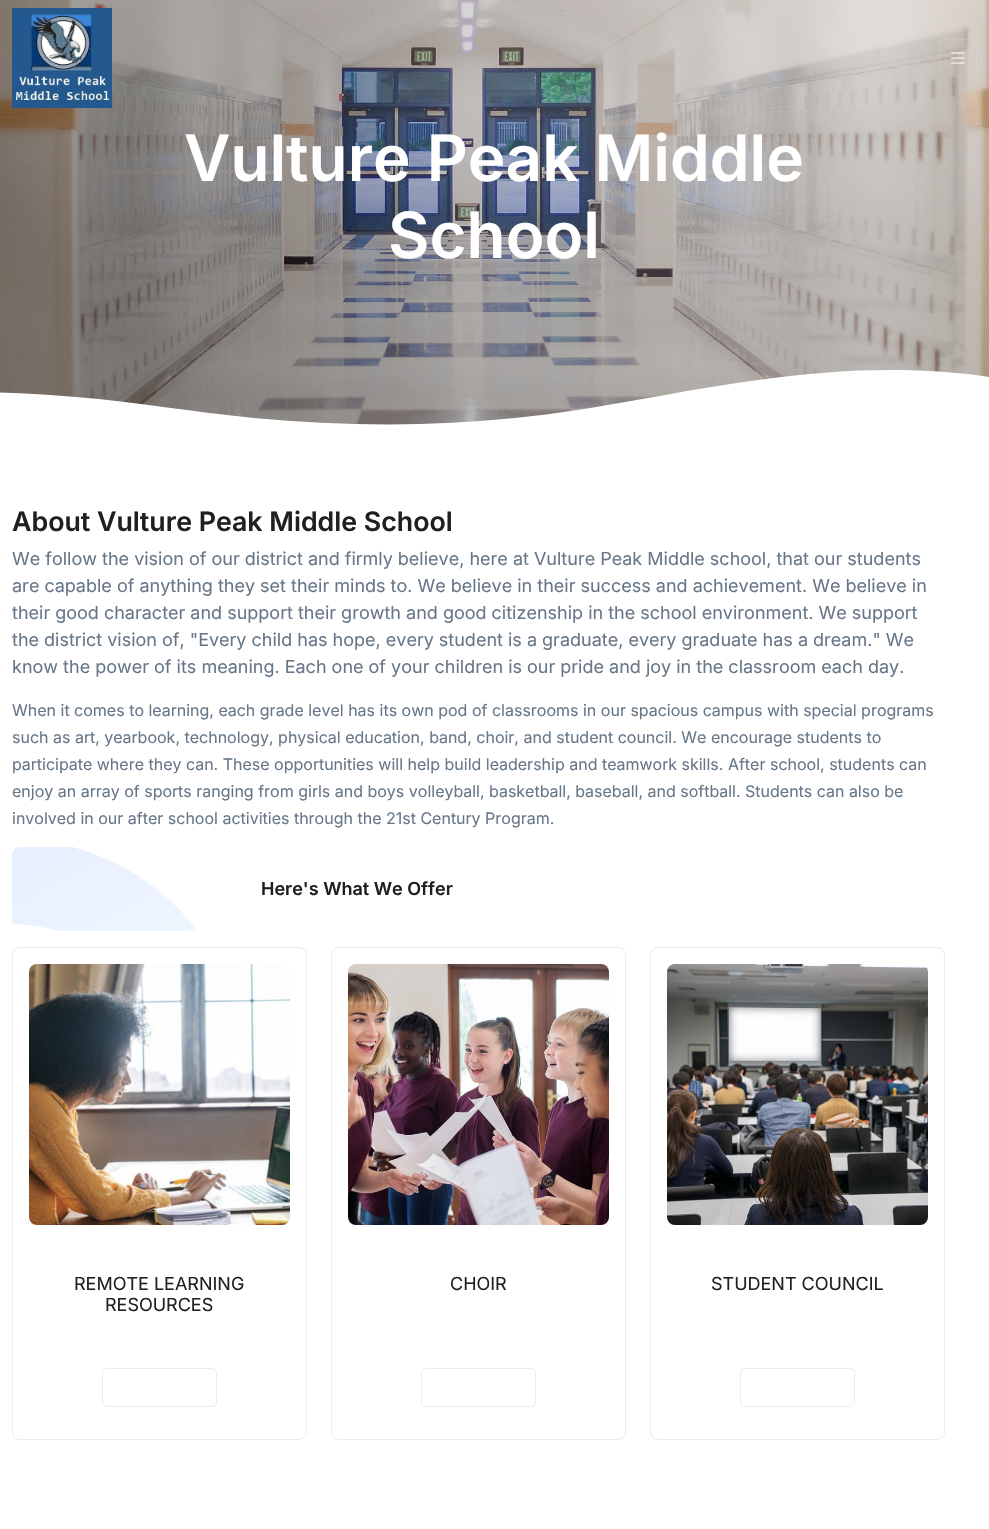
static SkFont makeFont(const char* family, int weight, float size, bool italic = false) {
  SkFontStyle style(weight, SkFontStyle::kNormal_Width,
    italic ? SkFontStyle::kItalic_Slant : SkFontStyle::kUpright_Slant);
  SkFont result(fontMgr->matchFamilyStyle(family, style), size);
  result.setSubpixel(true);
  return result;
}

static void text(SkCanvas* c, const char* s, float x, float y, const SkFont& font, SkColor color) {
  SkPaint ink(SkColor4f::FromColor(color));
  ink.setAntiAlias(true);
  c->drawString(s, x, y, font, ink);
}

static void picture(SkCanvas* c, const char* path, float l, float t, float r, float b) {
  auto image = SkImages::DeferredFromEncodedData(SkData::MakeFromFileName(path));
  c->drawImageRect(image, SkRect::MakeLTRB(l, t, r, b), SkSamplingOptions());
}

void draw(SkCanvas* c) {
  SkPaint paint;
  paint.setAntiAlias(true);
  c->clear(0xffffffff);
  picture(c, "img_03.png", 0, 0, 989, 425);
  picture(c, "img_01.png", 12, 8, 112, 108);
  paint.setStyle(SkPaint::kStroke_Style);
  paint.setStrokeWidth(1);
  paint.setColor(0x1affffff);
  c->drawRoundRect(SkRect::MakeLTRB(939.5f, 39.5f, 976.5f, 76.5f), 4.5f, 4.5f, paint);
  picture(c, "img_02.png", 951, 52, 965, 64);
  SkFont face1 = makeFont("Inter", 600, 63.75f);
  text(c, "Vulture Peak Middle", 184, 181, face1, 0xffffffff);
  text(c, "School", 388, 258, face1, 0xffffffff);
  paint.setStyle(SkPaint::kFill_Style);
  paint.setColor(0xffffffff);
  c->drawPath(SkPathBuilder().moveTo(76, 397).cubicTo(136, 402, 194, 412, 254, 418).cubicTo(340, 426, 429, 427, 515, 418).cubicTo(598, 410, 684, 389, 766, 379).cubicTo(839, 369, 919, 366, 989, 377).lineTo(989, 425).lineTo(-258, 425).lineTo(-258, 411).cubicTo(-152, 392, -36, 387, 76, 397).close().detach(), paint);
  SkFont face2 = makeFont("Inter", 600, 26.75f);
  text(c, "About Vulture Peak Middle School", 12, 531, face2, 0xff1e2022);
  SkFont face3 = makeFont("Inter", 400, 18);
  text(c, "We follow the vision of our district and firmly believe, here at Vulture Peak Middle school, that our students", 12, 565, face3, 0xff677788);
  text(c, "are capable of anything they set their minds to. We believe in their success and achievement. We believe in", 12, 592, face3, 0xff677788);
  text(c, "their good character and support their growth and good citizenship in the school environment. We support", 12, 619, face3, 0xff677788);
  text(c, "the district vision of, \"Every child has hope, every student is a graduate, every graduate has a dream.\" We", 12, 646, face3, 0xff677788);
  text(c, "know the power of its meaning. Each one of your children is our pride and joy in the classroom each day.", 12, 673, face3, 0xff677788);
  SkFont face4 = makeFont("Inter", 400, 16);
  text(c, "When it comes to learning, each grade level has its own pod of classrooms in our spacious campus with special programs", 12, 716, face4, 0xff677788);
  text(c, "such as art, yearbook, technology, physical education, band, choir, and student council. We encourage students to", 12, 743, face4, 0xff677788);
  text(c, "participate where they can. These opportunities will help build leadership and teamwork skills. After school, students can", 12, 770, face4, 0xff677788);
  text(c, "enjoy an array of sports ranging from girls and boys volleyball, basketball, baseball, and softball. Students can also be", 12, 797, face4, 0xff677788);
  text(c, "involved in our after school activities through the 21st Century Program.", 12, 824, face4, 0xff677788);
  c->save();
  c->clipPath(SkPathBuilder().moveTo(20, 847).lineTo(937, 847).cubicTo(941.5f, 847, 945, 850.5f, 945, 855).lineTo(945, 923).cubicTo(945, 927.5f, 941.5f, 931, 937, 931).lineTo(20, 931).cubicTo(15.5f, 931, 12, 927.5f, 12, 923).lineTo(12, 855).cubicTo(12, 850.5f, 15.5f, 847, 20, 847).close().detach(), true);
  paint.setStyle(SkPaint::kStroke_Style);
  paint.setStrokeWidth(84.8f);
  {
    const SkColor colors[] = {0xffffffff, 0xffe6efff};
    const float stops[] = {0, 1};
    const SkPoint ends[] = {{179, 1245}, {-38, 868}};
    paint.setShader(SkGradientShader::MakeLinear(ends, colors, stops, 2, SkTileMode::kClamp));
    paint.setAlpha(255);
  }
  c->drawPath(SkPathBuilder().moveTo(12, 881.5f).cubicTo(117.5f, 881.5f, 203, 967, 203, 1072).cubicTo(203, 1177.5f, 117.5f, 1263, 12, 1263).detach(), paint);
  c->restore();
  SkFont face5 = makeFont("Inter", 600, 18);
  text(c, "Here's What We Offer", 261, 895, face5, 0xff1e2022);
  paint.setStrokeWidth(1);
  paint.setShader(nullptr);
  paint.setColor(0xffe9ebef);
  c->drawRoundRect(SkRect::MakeLTRB(12.5f, 947.5f, 306.5f, 1439.5f), 7.5f, 7.5f, paint);
  picture(c, "img_04.png", 29, 964, 290, 1225);
  text(c, "REMOTE LEARNING", 74, 1290, face3, 0xff1e2022);
  text(c, "RESOURCES", 105, 1311, face3, 0xff1e2022);
  c->drawRoundRect(SkRect::MakeLTRB(102.5f, 1368.5f, 216.5f, 1406.5f), 4.5f, 4.5f, paint);
  c->drawRoundRect(SkRect::MakeLTRB(331.5f, 947.5f, 625.5f, 1439.5f), 7.5f, 7.5f, paint);
  picture(c, "img_05.png", 348, 964, 609, 1225);
  text(c, "CHOIR", 450, 1290, face3, 0xff1e2022);
  c->drawRoundRect(SkRect::MakeLTRB(421.5f, 1368.5f, 535.5f, 1406.5f), 4.5f, 4.5f, paint);
  c->drawRoundRect(SkRect::MakeLTRB(650.5f, 947.5f, 944.5f, 1439.5f), 7.5f, 7.5f, paint);
  picture(c, "img_06.png", 667, 964, 928, 1225);
  text(c, "STUDENT COUNCIL", 711, 1290, face3, 0xff1e2022);
  c->drawRoundRect(SkRect::MakeLTRB(740.5f, 1368.5f, 854.5f, 1406.5f), 4.5f, 4.5f, paint);
}
